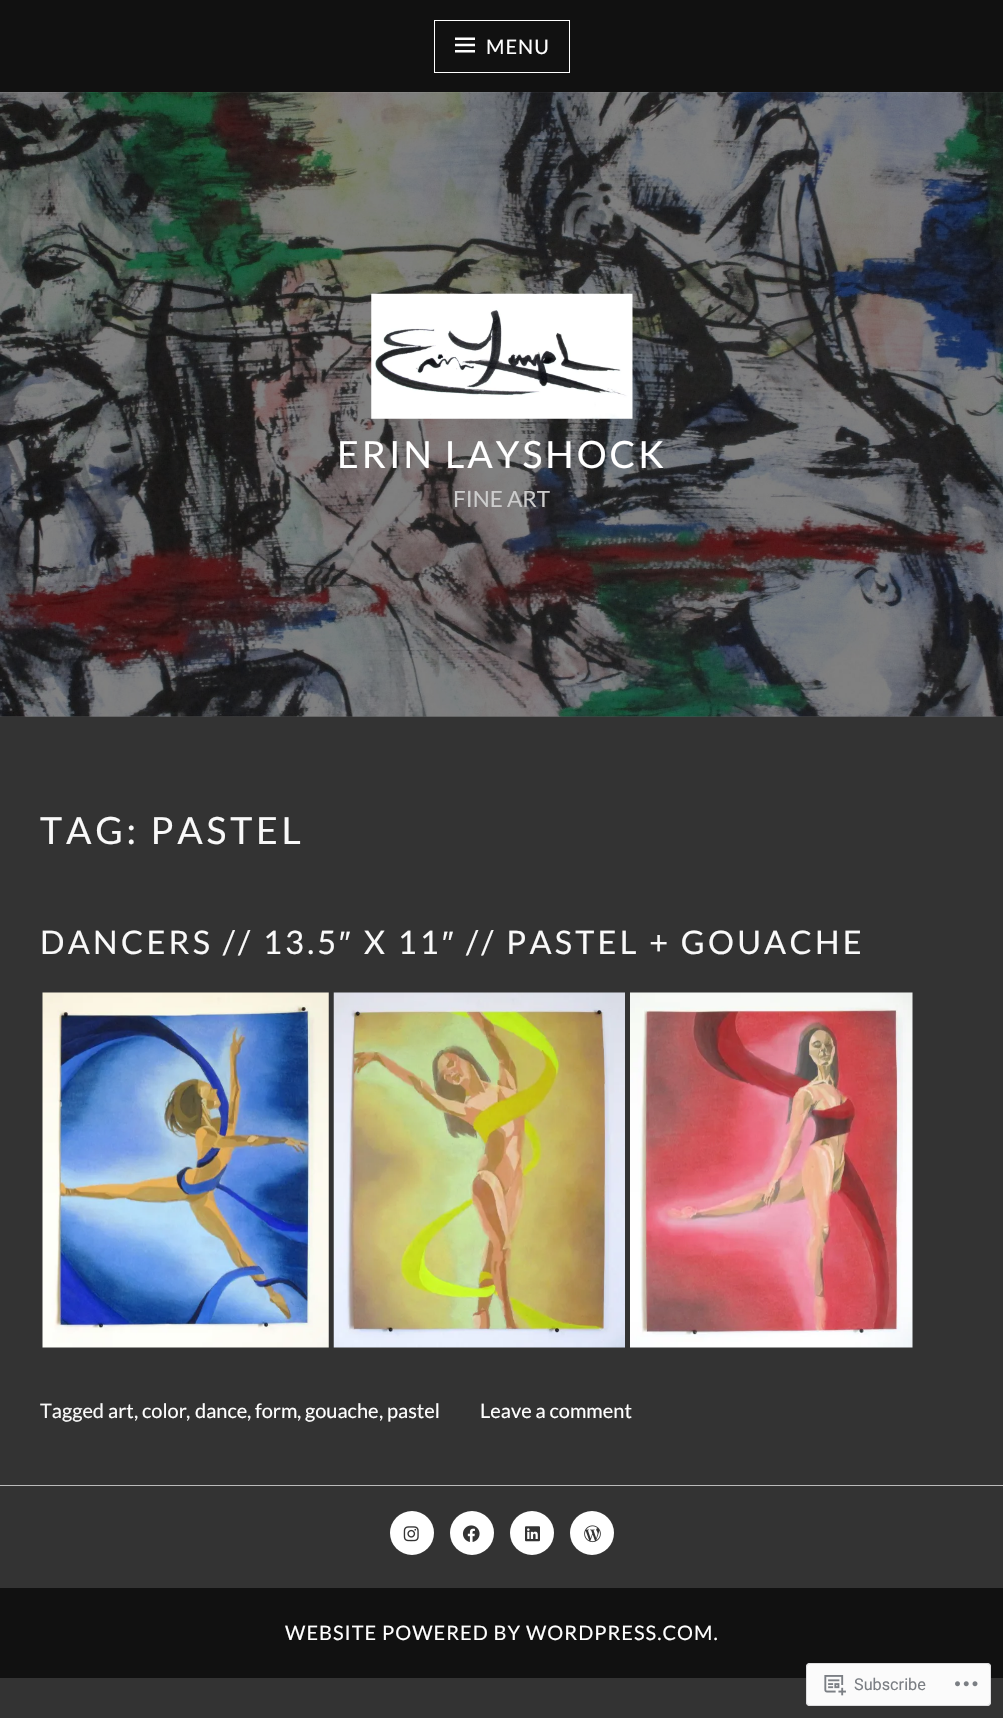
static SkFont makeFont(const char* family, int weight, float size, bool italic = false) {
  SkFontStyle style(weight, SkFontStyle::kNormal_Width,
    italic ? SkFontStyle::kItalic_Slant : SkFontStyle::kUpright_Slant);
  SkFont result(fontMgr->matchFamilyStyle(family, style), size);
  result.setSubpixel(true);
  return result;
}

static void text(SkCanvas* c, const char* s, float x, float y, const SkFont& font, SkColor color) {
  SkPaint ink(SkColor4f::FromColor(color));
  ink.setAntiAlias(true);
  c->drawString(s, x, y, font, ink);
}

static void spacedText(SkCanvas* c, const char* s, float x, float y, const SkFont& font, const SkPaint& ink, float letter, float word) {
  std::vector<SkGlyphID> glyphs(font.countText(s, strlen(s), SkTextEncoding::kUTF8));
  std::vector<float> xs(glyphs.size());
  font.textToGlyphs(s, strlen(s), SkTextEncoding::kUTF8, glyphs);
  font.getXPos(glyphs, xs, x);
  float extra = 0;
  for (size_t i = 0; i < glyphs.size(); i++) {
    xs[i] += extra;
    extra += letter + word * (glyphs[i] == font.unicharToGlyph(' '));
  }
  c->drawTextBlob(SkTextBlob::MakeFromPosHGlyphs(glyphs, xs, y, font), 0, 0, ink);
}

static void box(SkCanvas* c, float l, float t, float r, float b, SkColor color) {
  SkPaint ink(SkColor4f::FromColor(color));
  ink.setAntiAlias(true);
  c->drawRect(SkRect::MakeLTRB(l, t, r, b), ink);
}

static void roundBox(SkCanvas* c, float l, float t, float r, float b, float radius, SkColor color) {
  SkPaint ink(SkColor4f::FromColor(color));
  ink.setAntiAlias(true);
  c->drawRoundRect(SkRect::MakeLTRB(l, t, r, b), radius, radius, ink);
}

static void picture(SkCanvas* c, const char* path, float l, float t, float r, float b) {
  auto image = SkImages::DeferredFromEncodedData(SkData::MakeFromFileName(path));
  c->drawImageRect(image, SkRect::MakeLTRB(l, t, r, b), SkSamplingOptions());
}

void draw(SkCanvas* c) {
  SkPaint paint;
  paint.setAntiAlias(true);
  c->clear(0xff333333);
  box(c, 0, 0, 1003, 93, 0xff111111);
  paint.setStyle(SkPaint::kStroke_Style);
  paint.setStrokeWidth(1);
  paint.setColor(0xffffffff);
  c->drawRect(SkRect::MakeLTRB(434.5f, 20.5f, 569.5f, 72.5f), paint);
  picture(c, "img_01.png", 455, 37, 475, 53);
  SkFont face1 = makeFont("Lato", 400, 20);
  paint.setStyle(SkPaint::kFill_Style);
  spacedText(c, "MENU", 486, 54, face1, paint, 1, 0);
  picture(c, "img_02.png", 0, 92, 1003, 717);
  picture(c, "img_03.png", 371, 293, 633, 419);
  SkFont face2 = makeFont("Lato", 400, 37.5f);
  spacedText(c, "ERIN LAYSHOCK", 337, 468, face2, paint, 3, 0);
  SkFont face3 = makeFont("Lato", 400, 22.5f);
  text(c, "FINE ART", 453, 507, face3, 0xffcccccc);
  paint.setColor(0xfff9f9f9);
  spacedText(c, "TAG: PASTEL", 40, 844, face2, paint, 3.75f, 0);
  SkFont face4 = makeFont("Lato", 400, 32.5f);
  spacedText(c, "DANCERS // 13.5", 40, 954, face4, paint, 3.25f, 0);
  SkFont face5 = makeFont("Liberation Sans", 400, 32.5f);
  spacedText(c, "″", 339, 954, face5, paint, 3.25f, 0);
  spacedText(c, "X 11", 364, 954, face4, paint, 3.25f, 0);
  spacedText(c, "″", 442, 954, face5, paint, 3.25f, 0);
  spacedText(c, "// PASTEL + GOUACHE", 466, 954, face4, paint, 3.25f, 0);
  picture(c, "img_04.png", 42, 992, 329, 1348);
  picture(c, "img_05.png", 333, 992, 625, 1348);
  picture(c, "img_06.png", 630, 992, 913, 1348);
  text(c, "Tagged", 40, 1418, face1, 0xfff9f9f9);
  text(c, "art", 108, 1418, face1, 0xffffffff);
  text(c, ",", 134, 1418, face1, 0xfff9f9f9);
  text(c, "color", 142, 1418, face1, 0xffffffff);
  text(c, ",", 186, 1418, face1, 0xfff9f9f9);
  text(c, "dance", 195, 1418, face1, 0xffffffff);
  text(c, ",", 247, 1418, face1, 0xfff9f9f9);
  text(c, "form", 255, 1418, face1, 0xffffffff);
  text(c, ",", 297, 1418, face1, 0xfff9f9f9);
  text(c, "gouache", 305, 1418, face1, 0xffffffff);
  text(c, ",", 379, 1418, face1, 0xfff9f9f9);
  text(c, "pastel", 387, 1418, face1, 0xffffffff);
  text(c, "Leave a comment", 480, 1418, face1, 0xffffffff);
  box(c, 0, 1485, 1003, 1486, 0xffbbbbbb);
  paint.setColor(0xffffffff);
  c->drawCircle(412, 1533, 22, paint);
  picture(c, "img_07.png", 403, 1526, 419, 1542);
  c->drawCircle(472, 1533, 22, paint);
  picture(c, "img_08.png", 462, 1525, 480, 1542);
  c->drawCircle(532, 1533, 22, paint);
  picture(c, "img_09.png", 525, 1526, 540, 1542);
  c->drawCircle(592, 1533, 22, paint);
  picture(c, "img_10.png", 584, 1525, 601, 1543);
  box(c, 0, 1588, 1003, 1678, 0xff111111);
  spacedText(c, "WEBSITE POWERED BY WORDPRESS.COM.", 285, 1640, face1, paint, 1, 0);
  roundBox(c, 806, 1663, 991, 1706, 4, 0xfaffffff);
  paint.setStyle(SkPaint::kStroke_Style);
  paint.setColor(0xfadcdcde);
  c->drawRoundRect(SkRect::MakeLTRB(806.5f, 1663.5f, 990.5f, 1705.5f), 3.5f, 3.5f, paint);
  picture(c, "img_11.png", 824, 1675, 846, 1696);
  SkFont face6 = makeFont("Roboto", 400, 16.25f);
  text(c, "Subscribe", 854, 1690, face6, 0xff7b7f84);
  picture(c, "img_12.png", 955, 1681, 978, 1687);
}
